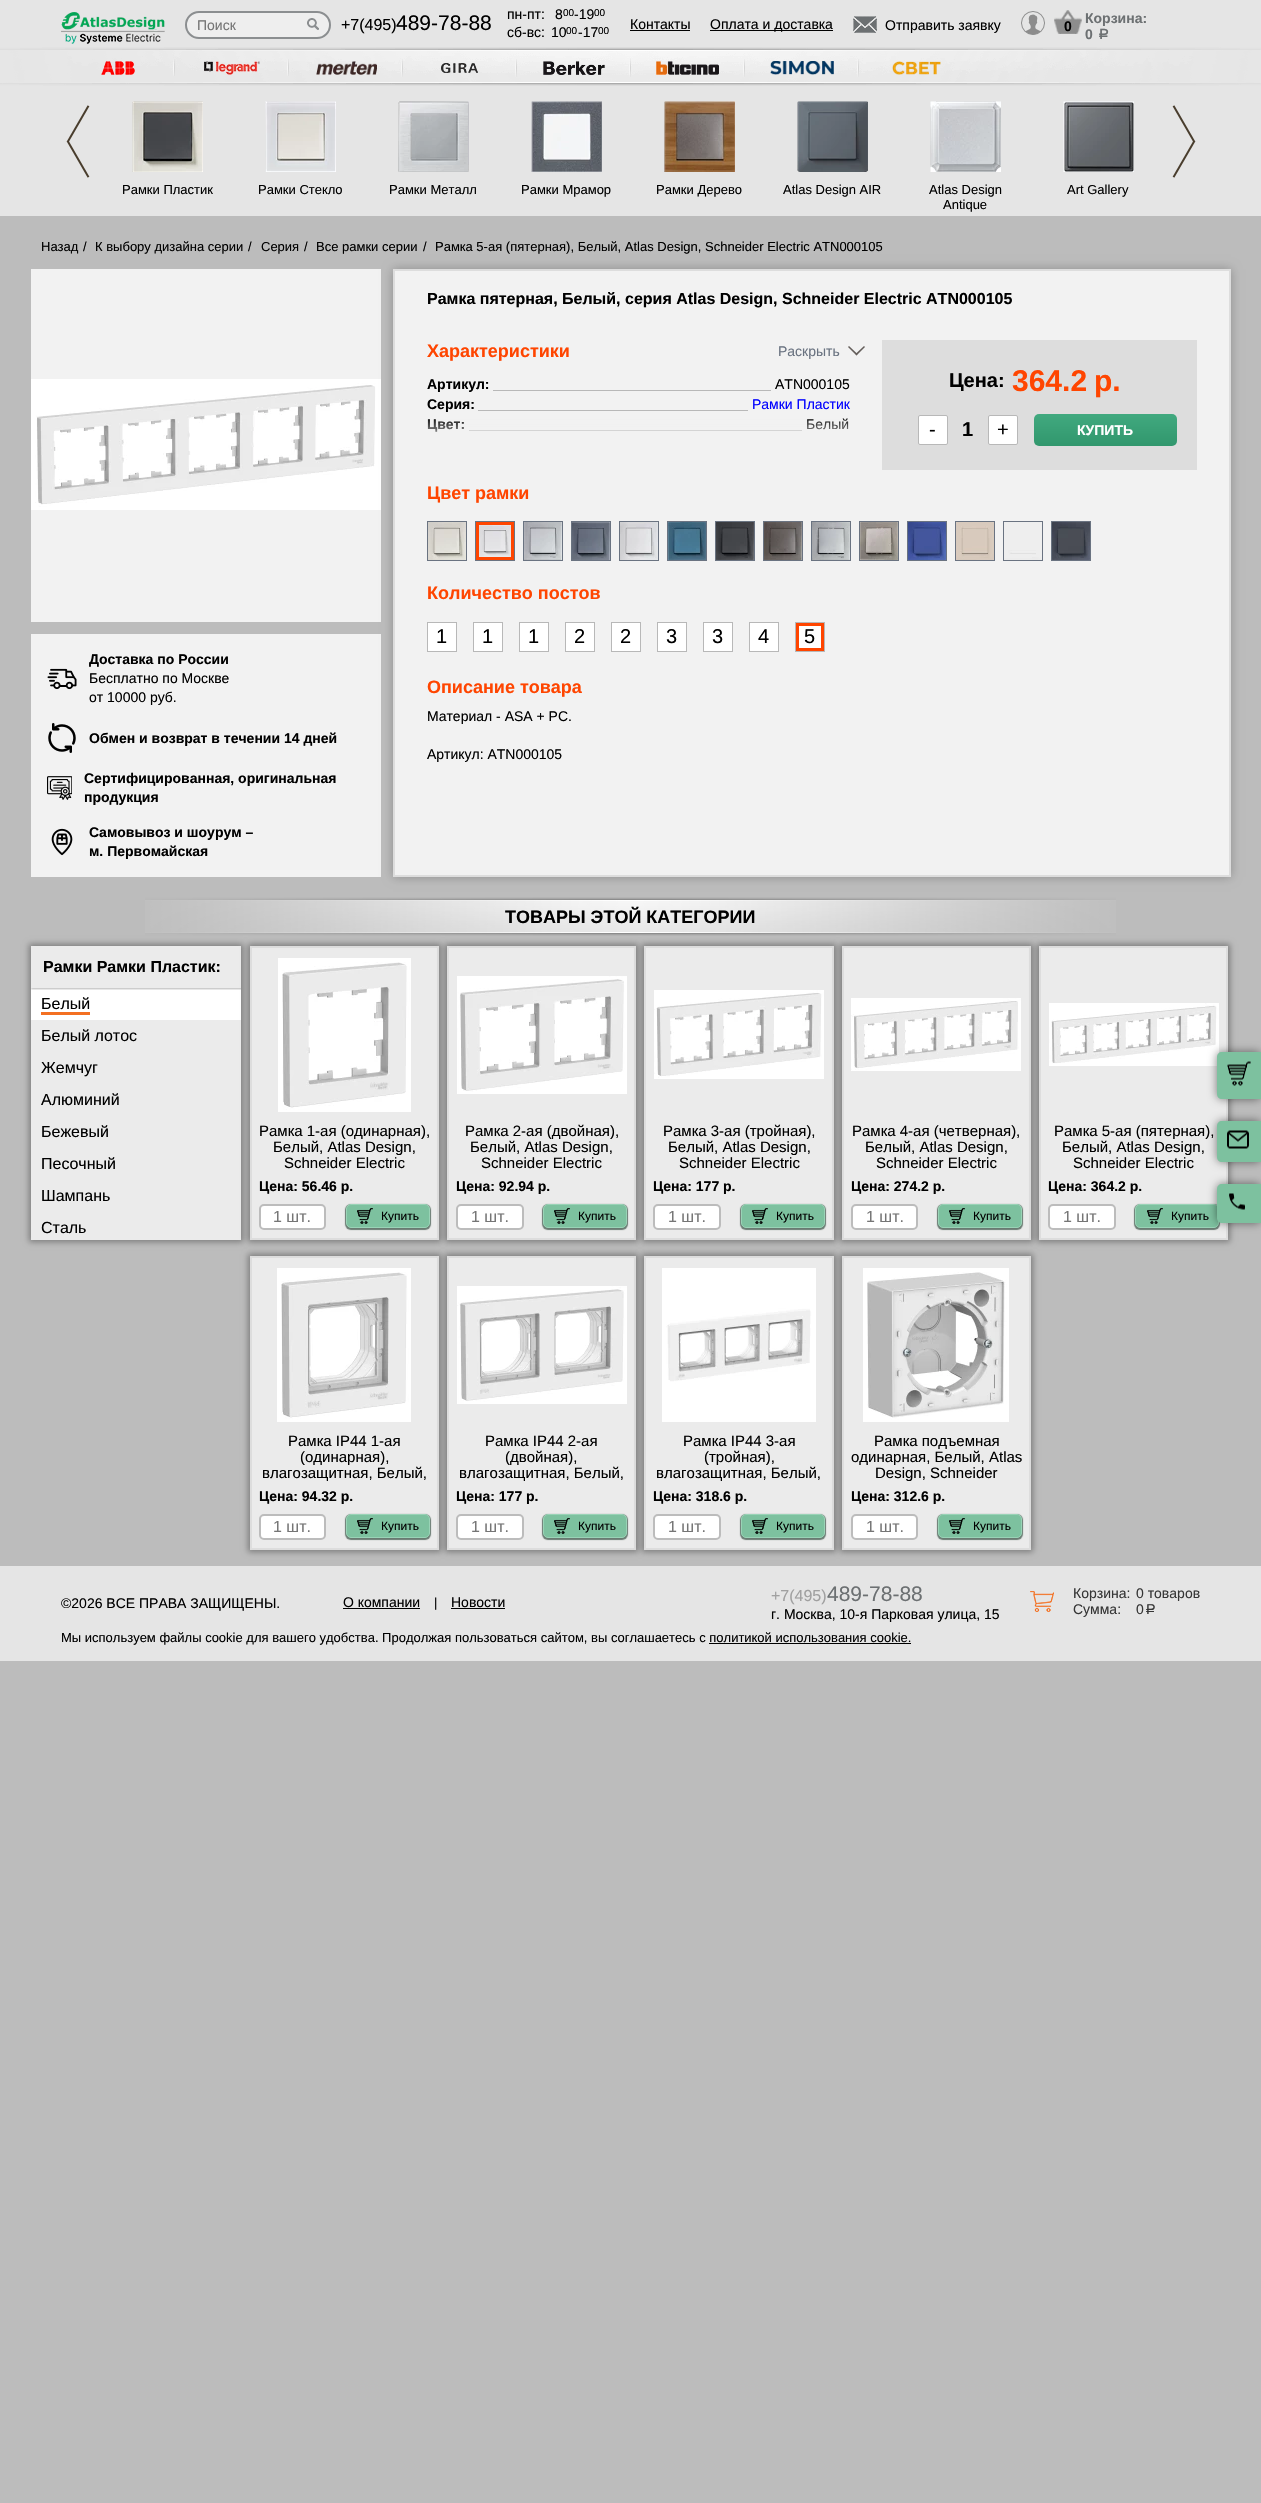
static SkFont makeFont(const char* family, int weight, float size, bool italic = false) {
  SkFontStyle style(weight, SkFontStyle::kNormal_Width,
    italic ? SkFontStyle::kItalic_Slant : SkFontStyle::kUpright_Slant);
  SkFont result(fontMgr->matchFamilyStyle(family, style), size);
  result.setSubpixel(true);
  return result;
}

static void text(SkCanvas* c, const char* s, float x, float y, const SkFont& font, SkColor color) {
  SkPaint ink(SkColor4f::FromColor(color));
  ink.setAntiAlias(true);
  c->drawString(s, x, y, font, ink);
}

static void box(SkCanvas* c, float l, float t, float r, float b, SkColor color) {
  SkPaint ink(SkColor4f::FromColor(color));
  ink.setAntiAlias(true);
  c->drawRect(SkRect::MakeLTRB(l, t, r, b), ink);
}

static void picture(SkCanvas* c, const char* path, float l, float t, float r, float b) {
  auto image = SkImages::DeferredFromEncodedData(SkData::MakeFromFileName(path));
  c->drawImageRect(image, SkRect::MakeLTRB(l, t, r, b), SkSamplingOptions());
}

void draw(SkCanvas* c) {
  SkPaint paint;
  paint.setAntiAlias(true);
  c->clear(0xffbcbcbc);
  box(c, 0, 0, 1261, 216, 0xffe5e5e5);
  picture(c, "img_01.png", 61, 12, 165, 44);
  paint.setColor(0xffeeeeee);
  c->drawRoundRect(SkRect::MakeLTRB(186, 12, 330, 38), 13, 13, paint);
  paint.setStyle(SkPaint::kStroke_Style);
  paint.setStrokeWidth(2);
  paint.setColor(0xff8b8e90);
  c->drawRoundRect(SkRect::MakeLTRB(186, 12, 330, 38), 13, 13, paint);
  SkFont face1 = makeFont("Liberation Sans", 400, 14);
  text(c, "Поиск", 197, 30, face1, 0xff757575);
  picture(c, "img_02.png", 307, 18, 319, 30);
  SkFont face2 = makeFont("Liberation Sans", 400, 16);
  text(c, "+7(495)", 341, 30, face2, 0xff000000);
  SkFont face3 = makeFont("Liberation Sans", 400, 21);
  text(c, "489-78-88", 396, 30, face3, 0xff000000);
  text(c, "пн-пт:", 507, 19, face1, 0xff000000);
  text(c, "8", 555, 19, face1, 0xff000000);
  SkFont face4 = makeFont("Liberation Sans", 400, 10);
  text(c, "00", 563, 16, face4, 0xff000000);
  text(c, "-19", 574, 19, face1, 0xff000000);
  text(c, "00", 594, 16, face4, 0xff000000);
  text(c, "сб-вс:", 507, 37, face1, 0xff000000);
  text(c, "10", 551, 37, face1, 0xff000000);
  text(c, "00", 566, 34, face4, 0xff000000);
  text(c, "-17", 578, 37, face1, 0xff000000);
  text(c, "00", 598, 34, face4, 0xff000000);
  text(c, "Контакты", 630, 29, face1, 0xff000000);
  box(c, 630, 30, 690, 31, 0xff000000);
  box(c, 710, 30, 833, 31, 0xff000000);
  text(c, "Оплата и доставка", 710, 29, face1, 0xff000000);
  picture(c, "img_03.png", 853, 16, 877, 33);
  text(c, "Отправить заявку", 885, 30, face1, 0xff000000);
  picture(c, "img_04.png", 1021, 11, 1045, 35);
  picture(c, "img_05.png", 1054, 10, 1082, 34);
  SkFont face5 = makeFont("Liberation Sans", 700, 14);
  text(c, "0", 1064, 31, face5, 0xff000000);
  text(c, "Корзина:", 1085, 23, face5, 0xff6c7072);
  text(c, "0", 1085, 39, face5, 0xff6c7072);
  SkFont face6 = makeFont("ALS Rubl", 700, 14);
  text(c, "a", 1097, 39, face6, 0xff6c7072);
  picture(c, "img_06.png", 0, 47, 1261, 86);
  picture(c, "img_07.png", 101, 61, 135, 75);
  picture(c, "img_08.png", 173, 59, 175, 76);
  picture(c, "img_09.png", 204, 61, 260, 75);
  picture(c, "img_10.png", 287, 59, 289, 76);
  picture(c, "img_11.png", 316, 61, 377, 75);
  picture(c, "img_12.png", 401, 59, 403, 77);
  picture(c, "img_13.png", 441, 63, 478, 73);
  picture(c, "img_14.png", 515, 59, 517, 77);
  picture(c, "img_15.png", 543, 61, 605, 75);
  picture(c, "img_16.png", 629, 58, 631, 77);
  picture(c, "img_17.png", 656, 61, 719, 75);
  picture(c, "img_18.png", 743, 59, 745, 77);
  picture(c, "img_19.png", 770, 61, 834, 75);
  picture(c, "img_20.png", 857, 59, 859, 77);
  picture(c, "img_21.png", 892, 61, 941, 75);
  picture(c, "img_22.png", 66, 105, 90, 178);
  picture(c, "img_23.png", 1172, 105, 1196, 178);
  picture(c, "img_24.png", 132, 101, 203, 172);
  SkFont face7 = makeFont("Liberation Sans", 400, 13);
  text(c, "Рамки Пластик", 122, 194, face7, 0xff000000);
  picture(c, "img_25.png", 265, 101, 336, 172);
  text(c, "Рамки Стекло", 258, 194, face7, 0xff000000);
  picture(c, "img_26.png", 398, 101, 469, 172);
  text(c, "Рамки Металл", 389, 194, face7, 0xff000000);
  picture(c, "img_27.png", 531, 101, 602, 172);
  text(c, "Рамки Мрамор", 521, 194, face7, 0xff000000);
  picture(c, "img_28.png", 664, 101, 735, 172);
  text(c, "Рамки Дерево", 656, 194, face7, 0xff000000);
  picture(c, "img_29.png", 797, 101, 868, 172);
  text(c, "Atlas Design AIR", 783, 194, face7, 0xff000000);
  picture(c, "img_30.png", 930, 101, 1001, 172);
  text(c, "Atlas Design", 929, 194, face7, 0xff000000);
  text(c, "Antique", 943, 209, face7, 0xff000000);
  picture(c, "img_31.png", 1063, 101, 1134, 172);
  text(c, "Art Gallery", 1067, 194, face7, 0xff000000);
  text(c, "Назад", 41, 251, face7, 0xff000000);
  text(c, "/", 83, 251, face7, 0xff000000);
  text(c, "К выбору дизайна серии", 95, 251, face7, 0xff000000);
  text(c, "/", 248, 251, face7, 0xff000000);
  text(c, "Серия", 261, 251, face7, 0xff000000);
  text(c, "/", 304, 251, face7, 0xff000000);
  text(c, "Все рамки серии", 316, 251, face7, 0xff000000);
  text(c, "/", 423, 251, face7, 0xff000000);
  text(c, "Рамка 5-ая (пятерная), Белый, Atlas Design, Schneider Electric ATN000105", 435, 251, face7, 0xff000000);
  box(c, 31, 269, 381, 622, 0xfff2f2f2);
  picture(c, "img_32.png", 31, 379, 381, 510);
  box(c, 31, 634, 381, 877, 0xfff2f2f2);
  picture(c, "img_33.png", 47, 668, 77, 690);
  text(c, "Доставка по России", 89, 664, face5, 0xff000000);
  text(c, "Бесплатно по Москве", 89, 683, face1, 0xff000000);
  text(c, "от 10000 руб.", 89, 702, face1, 0xff000000);
  picture(c, "img_34.png", 48, 723, 76, 753);
  text(c, "Обмен и возврат в течении 14 дней", 89, 743, face5, 0xff000000);
  picture(c, "img_35.png", 47, 776, 72, 800);
  text(c, "Сертифицированная, оригинальная", 84, 783, face5, 0xff000000);
  text(c, "продукция", 84, 802, face5, 0xff000000);
  picture(c, "img_36.png", 51, 828, 73, 856);
  text(c, "Самовывоз и шоурум –", 89, 837, face5, 0xff000000);
  text(c, "м. Первомайская", 89, 856, face5, 0xff000000);
  paint.setStyle(SkPaint::kFill_Style);
  paint.setColor(0x40000000);
  paint.setMaskFilter(SkMaskFilter::MakeBlur(kNormal_SkBlurStyle, 5));
  c->drawRect(SkRect::MakeLTRB(393, 269, 1231, 877), paint);
  paint.setMaskFilter(nullptr);
  paint.setColor(0xfff2f2f2);
  c->drawRect(SkRect::MakeLTRB(394, 270, 1230, 876), paint);
  paint.setStyle(SkPaint::kStroke_Style);
  paint.setColor(0xffdddddd);
  c->drawRect(SkRect::MakeLTRB(394, 270, 1230, 876), paint);
  SkFont face8 = makeFont("Liberation Sans", 700, 16);
  text(c, "Рамка пятерная, Белый, серия Atlas Design, Schneider Electric ATN000105", 427, 304, face8, 0xff000000);
  SkFont face9 = makeFont("Liberation Sans", 700, 18);
  text(c, "Характеристики", 427, 357, face9, 0xffff4500);
  text(c, "Раскрыть", 778, 356, face1, 0xff6a7381);
  paint.setStyle(SkPaint::kFill_Style);
  paint.setColor(0xff645e5b);
  c->drawPath(SkPathBuilder().moveTo(848, 347).lineTo(849, 346).lineTo(857.5f, 354).lineTo(856.5f, 355.5f).close().detach(), paint);
  c->drawPath(SkPathBuilder().moveTo(864, 346).lineTo(865, 347).lineTo(856.5f, 355.5f).lineTo(855.5f, 354).close().detach(), paint);
  text(c, "Артикул:", 427, 389, face5, 0xff000000);
  text(c, "ATN000105", 775, 389, face1, 0xff000000);
  box(c, 493, 390, 771, 391, 0xffb8b8b8);
  text(c, "Серия:", 427, 409, face5, 0xff000000);
  text(c, "Рамки Пластик", 752, 409, face1, 0xff0000ff);
  box(c, 478, 410, 748, 411, 0xffb8b8b8);
  text(c, "Цвет:", 427, 429, face5, 0xff000000);
  box(c, 469, 430, 802, 431, 0xffb8b8b8);
  text(c, "Белый", 806, 429, face1, 0xff000000);
  {
    const SkColor colors[] = {0x00f2f2f2, 0xfff2f2f2};
    const float stops[] = {0, 1};
    const SkPoint ends[] = {{647, 416}, {647, 446}};
    paint.setShader(SkGradientShader::MakeLinear(ends, colors, stops, 2, SkTileMode::kClamp));
    paint.setAlpha(255);
  }
  c->drawRect(SkRect::MakeLTRB(427, 418, 849, 432), paint);
  box(c, 882, 340, 1197, 470, 0xffdddddd);
  SkFont face10 = makeFont("Liberation Sans", 700, 20);
  text(c, "Цена:", 949, 387, face10, 0xff000000);
  SkFont face11 = makeFont("Liberation Sans", 700, 30);
  text(c, "364.2", 1012, 391, face11, 0xffff4500);
  text(c, "р.", 1094, 391, face11, 0xffff4500);
  paint.setShader(nullptr);
  paint.setColor(0xffffffff);
  c->drawRoundRect(SkRect::MakeLTRB(918.5f, 415.5f, 947.5f, 444.5f), 1.5f, 1.5f, paint);
  paint.setStyle(SkPaint::kStroke_Style);
  paint.setStrokeWidth(1);
  paint.setColor(0xffb8b8b8);
  c->drawRoundRect(SkRect::MakeLTRB(918.5f, 415.5f, 947.5f, 444.5f), 1.5f, 1.5f, paint);
  SkFont face12 = makeFont("Liberation Sans", 400, 20);
  text(c, "-", 929, 436, face12, 0xff000000);
  text(c, "1", 962, 436, face10, 0xff000000);
  paint.setStyle(SkPaint::kFill_Style);
  paint.setColor(0xffffffff);
  c->drawRoundRect(SkRect::MakeLTRB(988.5f, 415.5f, 1017.5f, 444.5f), 1.5f, 1.5f, paint);
  paint.setStyle(SkPaint::kStroke_Style);
  paint.setColor(0xffb8b8b8);
  c->drawRoundRect(SkRect::MakeLTRB(988.5f, 415.5f, 1017.5f, 444.5f), 1.5f, 1.5f, paint);
  text(c, "+", 997, 436, face12, 0xff000000);
  paint.setStyle(SkPaint::kFill_Style);
  {
    const SkColor colors[] = {0xff41a97f, 0xff31976d};
    const float stops[] = {0, 1};
    const SkPoint ends[] = {{1106, 414}, {1106, 446}};
    paint.setShader(SkGradientShader::MakeLinear(ends, colors, stops, 2, SkTileMode::kClamp));
    paint.setAlpha(255);
  }
  c->drawRoundRect(SkRect::MakeLTRB(1034, 414, 1177, 446), 5, 5, paint);
  text(c, "КУПИТЬ", 1077, 435, face5, 0xffffffff);
  text(c, "Цвет рамки", 427, 499, face9, 0xffff4500);
  paint.setStyle(SkPaint::kStroke_Style);
  paint.setShader(nullptr);
  paint.setColor(0xff6a7381);
  c->drawRect(SkRect::MakeLTRB(427.5f, 521.5f, 466.5f, 560.5f), paint);
  picture(c, "img_37.png", 428, 522, 466, 560);
  paint.setStrokeWidth(3);
  paint.setColor(0xffff4500);
  c->drawRect(SkRect::MakeLTRB(477.5f, 523.5f, 512.5f, 558.5f), paint);
  paint.setStrokeWidth(1);
  paint.setColor(0xff6a7381);
  c->drawRect(SkRect::MakeLTRB(475.5f, 521.5f, 514.5f, 560.5f), paint);
  picture(c, "img_38.png", 479, 525, 511, 557);
  c->drawRect(SkRect::MakeLTRB(523.5f, 521.5f, 562.5f, 560.5f), paint);
  picture(c, "img_39.png", 524, 522, 562, 560);
  c->drawRect(SkRect::MakeLTRB(571.5f, 521.5f, 610.5f, 560.5f), paint);
  picture(c, "img_40.png", 572, 522, 610, 560);
  c->drawRect(SkRect::MakeLTRB(619.5f, 521.5f, 658.5f, 560.5f), paint);
  picture(c, "img_41.png", 620, 522, 658, 560);
  c->drawRect(SkRect::MakeLTRB(667.5f, 521.5f, 706.5f, 560.5f), paint);
  picture(c, "img_42.png", 668, 522, 706, 560);
  c->drawRect(SkRect::MakeLTRB(715.5f, 521.5f, 754.5f, 560.5f), paint);
  picture(c, "img_43.png", 716, 522, 754, 560);
  c->drawRect(SkRect::MakeLTRB(763.5f, 521.5f, 802.5f, 560.5f), paint);
  picture(c, "img_44.png", 764, 522, 802, 560);
  c->drawRect(SkRect::MakeLTRB(811.5f, 521.5f, 850.5f, 560.5f), paint);
  picture(c, "img_45.png", 812, 522, 850, 560);
  c->drawRect(SkRect::MakeLTRB(859.5f, 521.5f, 898.5f, 560.5f), paint);
  picture(c, "img_46.png", 860, 522, 898, 560);
  c->drawRect(SkRect::MakeLTRB(907.5f, 521.5f, 946.5f, 560.5f), paint);
  picture(c, "img_47.png", 908, 522, 946, 560);
  c->drawRect(SkRect::MakeLTRB(955.5f, 521.5f, 994.5f, 560.5f), paint);
  picture(c, "img_48.png", 956, 522, 994, 560);
  c->drawRect(SkRect::MakeLTRB(1003.5f, 521.5f, 1042.5f, 560.5f), paint);
  picture(c, "img_49.png", 1004, 522, 1042, 560);
  c->drawRect(SkRect::MakeLTRB(1051.5f, 521.5f, 1090.5f, 560.5f), paint);
  picture(c, "img_50.png", 1052, 522, 1090, 560);
  text(c, "Количество постов", 427, 599, face9, 0xffff4500);
  paint.setStyle(SkPaint::kFill_Style);
  paint.setColor(0xffffffff);
  c->drawRect(SkRect::MakeLTRB(427.5f, 622.5f, 456.5f, 651.5f), paint);
  paint.setStyle(SkPaint::kStroke_Style);
  paint.setColor(0xffb8b8b8);
  c->drawRect(SkRect::MakeLTRB(427.5f, 622.5f, 456.5f, 651.5f), paint);
  text(c, "1", 436, 643, face12, 0xff000000);
  paint.setStyle(SkPaint::kFill_Style);
  paint.setColor(0xffffffff);
  c->drawRect(SkRect::MakeLTRB(473.5f, 622.5f, 502.5f, 651.5f), paint);
  paint.setStyle(SkPaint::kStroke_Style);
  paint.setColor(0xffb8b8b8);
  c->drawRect(SkRect::MakeLTRB(473.5f, 622.5f, 502.5f, 651.5f), paint);
  text(c, "1", 482, 643, face12, 0xff000000);
  paint.setStyle(SkPaint::kFill_Style);
  paint.setColor(0xffffffff);
  c->drawRect(SkRect::MakeLTRB(519.5f, 622.5f, 548.5f, 651.5f), paint);
  paint.setStyle(SkPaint::kStroke_Style);
  paint.setColor(0xffb8b8b8);
  c->drawRect(SkRect::MakeLTRB(519.5f, 622.5f, 548.5f, 651.5f), paint);
  text(c, "1", 528, 643, face12, 0xff000000);
  paint.setStyle(SkPaint::kFill_Style);
  paint.setColor(0xffffffff);
  c->drawRect(SkRect::MakeLTRB(565.5f, 622.5f, 594.5f, 651.5f), paint);
  paint.setStyle(SkPaint::kStroke_Style);
  paint.setColor(0xffb8b8b8);
  c->drawRect(SkRect::MakeLTRB(565.5f, 622.5f, 594.5f, 651.5f), paint);
  text(c, "2", 574, 643, face12, 0xff000000);
  paint.setStyle(SkPaint::kFill_Style);
  paint.setColor(0xffffffff);
  c->drawRect(SkRect::MakeLTRB(611.5f, 622.5f, 640.5f, 651.5f), paint);
  paint.setStyle(SkPaint::kStroke_Style);
  paint.setColor(0xffb8b8b8);
  c->drawRect(SkRect::MakeLTRB(611.5f, 622.5f, 640.5f, 651.5f), paint);
  text(c, "2", 620, 643, face12, 0xff000000);
  paint.setStyle(SkPaint::kFill_Style);
  paint.setColor(0xffffffff);
  c->drawRect(SkRect::MakeLTRB(657.5f, 622.5f, 686.5f, 651.5f), paint);
  paint.setStyle(SkPaint::kStroke_Style);
  paint.setColor(0xffb8b8b8);
  c->drawRect(SkRect::MakeLTRB(657.5f, 622.5f, 686.5f, 651.5f), paint);
  text(c, "3", 666, 643, face12, 0xff000000);
  paint.setStyle(SkPaint::kFill_Style);
  paint.setColor(0xffffffff);
  c->drawRect(SkRect::MakeLTRB(703.5f, 622.5f, 732.5f, 651.5f), paint);
  paint.setStyle(SkPaint::kStroke_Style);
  paint.setColor(0xffb8b8b8);
  c->drawRect(SkRect::MakeLTRB(703.5f, 622.5f, 732.5f, 651.5f), paint);
  text(c, "3", 712, 643, face12, 0xff000000);
  paint.setStyle(SkPaint::kFill_Style);
  paint.setColor(0xffffffff);
  c->drawRect(SkRect::MakeLTRB(749.5f, 622.5f, 778.5f, 651.5f), paint);
  paint.setStyle(SkPaint::kStroke_Style);
  paint.setColor(0xffb8b8b8);
  c->drawRect(SkRect::MakeLTRB(749.5f, 622.5f, 778.5f, 651.5f), paint);
  text(c, "4", 758, 643, face12, 0xff000000);
  paint.setStyle(SkPaint::kFill_Style);
  paint.setColor(0xffffffff);
  c->drawRect(SkRect::MakeLTRB(797.5f, 624.5f, 822.5f, 649.5f), paint);
  paint.setStyle(SkPaint::kStroke_Style);
  paint.setStrokeWidth(3);
  paint.setColor(0xffff4500);
  c->drawRect(SkRect::MakeLTRB(797.5f, 624.5f, 822.5f, 649.5f), paint);
  paint.setStrokeWidth(1);
  paint.setColor(0xffb8b8b8);
  c->drawRect(SkRect::MakeLTRB(795.5f, 622.5f, 824.5f, 651.5f), paint);
  text(c, "5", 804, 643, face12, 0xff000000);
  text(c, "Описание товара", 427, 693, face9, 0xffff4500);
  text(c, "Материал - ASA + PC.", 427, 721, face1, 0xff000000);
  text(c, "Артикул: ATN000105", 427, 759, face1, 0xff000000);
  picture(c, "img_51.png", 145, 897, 1116, 936);
  text(c, "ТОВАРЫ ЭТОЙ КАТЕГОРИИ", 505, 923, face9, 0xff000000);
  paint.setStyle(SkPaint::kFill_Style);
  paint.setColor(0x57000000);
  paint.setMaskFilter(SkMaskFilter::MakeBlur(kNormal_SkBlurStyle, 3));
  c->drawRect(SkRect::MakeLTRB(29, 944, 243, 1242), paint);
  paint.setMaskFilter(nullptr);
  box(c, 31, 946, 241, 1240, 0xffebebeb);
  box(c, 31, 988, 241, 1020, 0xffffffff);
  c->save();
  c->clipRect(SkRect::MakeLTRB(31, 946, 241, 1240));
  c->clipRect(SkRect::MakeLTRB(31, 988, 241, 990));
  paint.setColor(0x4a000000);
  paint.setMaskFilter(SkMaskFilter::MakeBlur(kNormal_SkBlurStyle, 1));
  c->drawRect(SkRect::MakeLTRB(31, 947, 246, 989), paint);
  paint.setMaskFilter(nullptr);
  c->restore();
  text(c, "Рамки Рамки Пластик:", 43, 972, face8, 0xff000000);
  text(c, "Белый", 41, 1009, face2, 0xff000000);
  box(c, 41, 1012, 90, 1015, 0xfff37022);
  text(c, "Белый лотос", 41, 1041, face2, 0xff000000);
  text(c, "Жемчуг", 41, 1073, face2, 0xff000000);
  text(c, "Алюминий", 41, 1105, face2, 0xff000000);
  text(c, "Бежевый", 41, 1137, face2, 0xff000000);
  text(c, "Песочный", 41, 1169, face2, 0xff000000);
  text(c, "Шампань", 41, 1201, face2, 0xff000000);
  text(c, "Сталь", 41, 1233, face2, 0xff000000);
  paint.setColor(0x57000000);
  paint.setMaskFilter(SkMaskFilter::MakeBlur(kNormal_SkBlurStyle, 3));
  c->drawRect(SkRect::MakeLTRB(248, 944, 441, 1242), paint);
  paint.setMaskFilter(nullptr);
  paint.setColor(0xffebebeb);
  c->drawRect(SkRect::MakeLTRB(251, 947, 438, 1239), paint);
  paint.setStyle(SkPaint::kStroke_Style);
  paint.setStrokeWidth(2);
  paint.setColor(0xffdddddd);
  c->drawRect(SkRect::MakeLTRB(251, 947, 438, 1239), paint);
  picture(c, "img_52.png", 278, 958, 411, 1112);
  SkFont face13 = makeFont("Liberation Sans", 400, 15);
  text(c, "Рамка 1-ая (одинарная),", 259, 1136, face13, 0xff000000);
  text(c, "Белый, Atlas Design,", 273, 1152, face13, 0xff000000);
  text(c, "Schneider Electric", 284, 1168, face13, 0xff000000);
  text(c, "Цена: 56.46 р.", 259, 1191, face5, 0xff000000);
  paint.setStyle(SkPaint::kFill_Style);
  paint.setColor(0xffffffff);
  c->drawRoundRect(SkRect::MakeLTRB(260, 1205, 325, 1229), 4, 4, paint);
  paint.setStyle(SkPaint::kStroke_Style);
  paint.setColor(0xffbcbcbc);
  c->drawRoundRect(SkRect::MakeLTRB(260, 1205, 325, 1229), 4, 4, paint);
  text(c, "1 шт.", 273, 1222, face2, 0xff757575);
  paint.setStyle(SkPaint::kFill_Style);
  paint.setColor(0xff687a71);
  paint.setMaskFilter(SkMaskFilter::MakeBlur(kNormal_SkBlurStyle, 0.5f));
  c->drawRoundRect(SkRect::MakeLTRB(345, 1204, 431, 1230), 6, 6, paint);
  paint.setMaskFilter(nullptr);
  paint.setColor(0xff7dc19f);
  c->drawRoundRect(SkRect::MakeLTRB(346.5f, 1204.5f, 429.5f, 1227.5f), 4.5f, 4.5f, paint);
  paint.setStyle(SkPaint::kStroke_Style);
  paint.setStrokeWidth(1);
  paint.setColor(0xff99d3b6);
  c->drawRoundRect(SkRect::MakeLTRB(346.5f, 1204.5f, 429.5f, 1227.5f), 4.5f, 4.5f, paint);
  picture(c, "img_53.png", 357, 1208, 373, 1224);
  SkFont face14 = makeFont("Liberation Sans", 400, 12);
  text(c, "Купить", 381, 1220, face14, 0xff000000);
  paint.setStyle(SkPaint::kFill_Style);
  paint.setColor(0x57000000);
  paint.setMaskFilter(SkMaskFilter::MakeBlur(kNormal_SkBlurStyle, 3));
  c->drawRect(SkRect::MakeLTRB(445, 944, 638, 1242), paint);
  paint.setMaskFilter(nullptr);
  paint.setColor(0xffebebeb);
  c->drawRect(SkRect::MakeLTRB(448, 947, 635, 1239), paint);
  paint.setStyle(SkPaint::kStroke_Style);
  paint.setStrokeWidth(2);
  paint.setColor(0xffdddddd);
  c->drawRect(SkRect::MakeLTRB(448, 947, 635, 1239), paint);
  picture(c, "img_54.png", 457, 976, 627, 1094);
  text(c, "Рамка 2-ая (двойная),", 465, 1136, face13, 0xff000000);
  text(c, "Белый, Atlas Design,", 470, 1152, face13, 0xff000000);
  text(c, "Schneider Electric", 481, 1168, face13, 0xff000000);
  text(c, "Цена: 92.94 р.", 456, 1191, face5, 0xff000000);
  paint.setStyle(SkPaint::kFill_Style);
  paint.setColor(0xffffffff);
  c->drawRoundRect(SkRect::MakeLTRB(457, 1205, 523, 1229), 4, 4, paint);
  paint.setStyle(SkPaint::kStroke_Style);
  paint.setColor(0xffbcbcbc);
  c->drawRoundRect(SkRect::MakeLTRB(457, 1205, 523, 1229), 4, 4, paint);
  text(c, "1 шт.", 471, 1222, face2, 0xff757575);
  paint.setStyle(SkPaint::kFill_Style);
  paint.setColor(0xff687a71);
  paint.setMaskFilter(SkMaskFilter::MakeBlur(kNormal_SkBlurStyle, 0.5f));
  c->drawRoundRect(SkRect::MakeLTRB(542, 1204, 628, 1230), 6, 6, paint);
  paint.setMaskFilter(nullptr);
  paint.setColor(0xff7dc19f);
  c->drawRoundRect(SkRect::MakeLTRB(543.5f, 1204.5f, 626.5f, 1227.5f), 4.5f, 4.5f, paint);
  paint.setStyle(SkPaint::kStroke_Style);
  paint.setStrokeWidth(1);
  paint.setColor(0xff99d3b6);
  c->drawRoundRect(SkRect::MakeLTRB(543.5f, 1204.5f, 626.5f, 1227.5f), 4.5f, 4.5f, paint);
  picture(c, "img_53.png", 554, 1208, 570, 1224);
  text(c, "Купить", 578, 1220, face14, 0xff000000);
  paint.setStyle(SkPaint::kFill_Style);
  paint.setColor(0x57000000);
  paint.setMaskFilter(SkMaskFilter::MakeBlur(kNormal_SkBlurStyle, 3));
  c->drawRect(SkRect::MakeLTRB(642, 944, 836, 1242), paint);
  paint.setMaskFilter(nullptr);
  paint.setColor(0xffebebeb);
  c->drawRect(SkRect::MakeLTRB(645, 947, 833, 1239), paint);
  paint.setStyle(SkPaint::kStroke_Style);
  paint.setStrokeWidth(2);
  paint.setColor(0xffdddddd);
  c->drawRect(SkRect::MakeLTRB(645, 947, 833, 1239), paint);
  picture(c, "img_55.png", 654, 990, 824, 1079);
  text(c, "Рамка 3-ая (тройная),", 663, 1136, face13, 0xff000000);
  text(c, "Белый, Atlas Design,", 668, 1152, face13, 0xff000000);
  text(c, "Schneider Electric", 679, 1168, face13, 0xff000000);
  text(c, "Цена: 177 р.", 653, 1191, face5, 0xff000000);
  paint.setStyle(SkPaint::kFill_Style);
  paint.setColor(0xffffffff);
  c->drawRoundRect(SkRect::MakeLTRB(654, 1205, 720, 1229), 4, 4, paint);
  paint.setStyle(SkPaint::kStroke_Style);
  paint.setColor(0xffbcbcbc);
  c->drawRoundRect(SkRect::MakeLTRB(654, 1205, 720, 1229), 4, 4, paint);
  text(c, "1 шт.", 668, 1222, face2, 0xff757575);
  paint.setStyle(SkPaint::kFill_Style);
  paint.setColor(0xff687a71);
  paint.setMaskFilter(SkMaskFilter::MakeBlur(kNormal_SkBlurStyle, 0.5f));
  c->drawRoundRect(SkRect::MakeLTRB(740, 1204, 826, 1230), 6, 6, paint);
  paint.setMaskFilter(nullptr);
  paint.setColor(0xff7dc19f);
  c->drawRoundRect(SkRect::MakeLTRB(741.5f, 1204.5f, 824.5f, 1227.5f), 4.5f, 4.5f, paint);
  paint.setStyle(SkPaint::kStroke_Style);
  paint.setStrokeWidth(1);
  paint.setColor(0xff99d3b6);
  c->drawRoundRect(SkRect::MakeLTRB(741.5f, 1204.5f, 824.5f, 1227.5f), 4.5f, 4.5f, paint);
  picture(c, "img_53.png", 752, 1208, 768, 1224);
  text(c, "Купить", 776, 1220, face14, 0xff000000);
  paint.setStyle(SkPaint::kFill_Style);
  paint.setColor(0x57000000);
  paint.setMaskFilter(SkMaskFilter::MakeBlur(kNormal_SkBlurStyle, 3));
  c->drawRect(SkRect::MakeLTRB(840, 944, 1033, 1242), paint);
  paint.setMaskFilter(nullptr);
  paint.setColor(0xffebebeb);
  c->drawRect(SkRect::MakeLTRB(843, 947, 1030, 1239), paint);
  paint.setStyle(SkPaint::kStroke_Style);
  paint.setStrokeWidth(2);
  paint.setColor(0xffdddddd);
  c->drawRect(SkRect::MakeLTRB(843, 947, 1030, 1239), paint);
  picture(c, "img_56.png", 851, 998, 1021, 1071);
  text(c, "Рамка 4-ая (четверная),", 852, 1136, face13, 0xff000000);
  text(c, "Белый, Atlas Design,", 865, 1152, face13, 0xff000000);
  text(c, "Schneider Electric", 876, 1168, face13, 0xff000000);
  text(c, "Цена: 274.2 р.", 851, 1191, face5, 0xff000000);
  paint.setStyle(SkPaint::kFill_Style);
  paint.setColor(0xffffffff);
  c->drawRoundRect(SkRect::MakeLTRB(852, 1205, 917, 1229), 4, 4, paint);
  paint.setStyle(SkPaint::kStroke_Style);
  paint.setColor(0xffbcbcbc);
  c->drawRoundRect(SkRect::MakeLTRB(852, 1205, 917, 1229), 4, 4, paint);
  text(c, "1 шт.", 866, 1222, face2, 0xff757575);
  paint.setStyle(SkPaint::kFill_Style);
  paint.setColor(0xff687a71);
  paint.setMaskFilter(SkMaskFilter::MakeBlur(kNormal_SkBlurStyle, 0.5f));
  c->drawRoundRect(SkRect::MakeLTRB(937, 1204, 1023, 1230), 6, 6, paint);
  paint.setMaskFilter(nullptr);
  paint.setColor(0xff7dc19f);
  c->drawRoundRect(SkRect::MakeLTRB(938.5f, 1204.5f, 1021.5f, 1227.5f), 4.5f, 4.5f, paint);
  paint.setStyle(SkPaint::kStroke_Style);
  paint.setStrokeWidth(1);
  paint.setColor(0xff99d3b6);
  c->drawRoundRect(SkRect::MakeLTRB(938.5f, 1204.5f, 1021.5f, 1227.5f), 4.5f, 4.5f, paint);
  picture(c, "img_53.png", 949, 1208, 965, 1224);
  text(c, "Купить", 973, 1220, face14, 0xff000000);
  paint.setStyle(SkPaint::kFill_Style);
  paint.setColor(0x57000000);
  paint.setMaskFilter(SkMaskFilter::MakeBlur(kNormal_SkBlurStyle, 3));
  c->drawRect(SkRect::MakeLTRB(1037, 944, 1230, 1242), paint);
  paint.setMaskFilter(nullptr);
  paint.setColor(0xffebebeb);
  c->drawRect(SkRect::MakeLTRB(1040, 947, 1227, 1239), paint);
  paint.setStyle(SkPaint::kStroke_Style);
  paint.setStrokeWidth(2);
  paint.setColor(0xffdddddd);
  c->drawRect(SkRect::MakeLTRB(1040, 947, 1227, 1239), paint);
  picture(c, "img_57.png", 1049, 1003, 1219, 1066);
  text(c, "Рамка 5-ая (пятерная),", 1054, 1136, face13, 0xff000000);
  text(c, "Белый, Atlas Design,", 1062, 1152, face13, 0xff000000);
  text(c, "Schneider Electric", 1073, 1168, face13, 0xff000000);
  text(c, "Цена: 364.2 р.", 1048, 1191, face5, 0xff000000);
  paint.setStyle(SkPaint::kFill_Style);
  paint.setColor(0xffffffff);
  c->drawRoundRect(SkRect::MakeLTRB(1049, 1205, 1115, 1229), 4, 4, paint);
  paint.setStyle(SkPaint::kStroke_Style);
  paint.setColor(0xffbcbcbc);
  c->drawRoundRect(SkRect::MakeLTRB(1049, 1205, 1115, 1229), 4, 4, paint);
  text(c, "1 шт.", 1063, 1222, face2, 0xff757575);
  paint.setStyle(SkPaint::kFill_Style);
  paint.setColor(0xff687a71);
  paint.setMaskFilter(SkMaskFilter::MakeBlur(kNormal_SkBlurStyle, 0.5f));
  c->drawRoundRect(SkRect::MakeLTRB(1134, 1204, 1220, 1230), 6, 6, paint);
  paint.setMaskFilter(nullptr);
  paint.setColor(0xff7dc19f);
  c->drawRoundRect(SkRect::MakeLTRB(1135.5f, 1204.5f, 1218.5f, 1227.5f), 4.5f, 4.5f, paint);
  paint.setStyle(SkPaint::kStroke_Style);
  paint.setStrokeWidth(1);
  paint.setColor(0xff99d3b6);
  c->drawRoundRect(SkRect::MakeLTRB(1135.5f, 1204.5f, 1218.5f, 1227.5f), 4.5f, 4.5f, paint);
  picture(c, "img_53.png", 1147, 1208, 1163, 1224);
  text(c, "Купить", 1171, 1220, face14, 0xff000000);
  paint.setStyle(SkPaint::kFill_Style);
  paint.setColor(0x57000000);
  paint.setMaskFilter(SkMaskFilter::MakeBlur(kNormal_SkBlurStyle, 3));
  c->drawRect(SkRect::MakeLTRB(248, 1254, 441, 1552), paint);
  paint.setMaskFilter(nullptr);
  paint.setColor(0xffebebeb);
  c->drawRect(SkRect::MakeLTRB(251, 1257, 438, 1549), paint);
  paint.setStyle(SkPaint::kStroke_Style);
  paint.setStrokeWidth(2);
  paint.setColor(0xffdddddd);
  c->drawRect(SkRect::MakeLTRB(251, 1257, 438, 1549), paint);
  picture(c, "img_58.png", 277, 1268, 411, 1422);
  text(c, "Рамка IP44 1-ая", 288, 1446, face13, 0xff000000);
  text(c, "(одинарная),", 300, 1462, face13, 0xff000000);
  text(c, "влагозащитная, Белый,", 262, 1478, face13, 0xff000000);
  text(c, "Цена: 94.32 р.", 259, 1501, face5, 0xff000000);
  paint.setStyle(SkPaint::kFill_Style);
  paint.setColor(0xffffffff);
  c->drawRoundRect(SkRect::MakeLTRB(260, 1515, 325, 1539), 4, 4, paint);
  paint.setStyle(SkPaint::kStroke_Style);
  paint.setColor(0xffbcbcbc);
  c->drawRoundRect(SkRect::MakeLTRB(260, 1515, 325, 1539), 4, 4, paint);
  text(c, "1 шт.", 273, 1532, face2, 0xff757575);
  paint.setStyle(SkPaint::kFill_Style);
  paint.setColor(0xff687a71);
  paint.setMaskFilter(SkMaskFilter::MakeBlur(kNormal_SkBlurStyle, 0.5f));
  c->drawRoundRect(SkRect::MakeLTRB(345, 1514, 431, 1540), 6, 6, paint);
  paint.setMaskFilter(nullptr);
  paint.setColor(0xff7dc19f);
  c->drawRoundRect(SkRect::MakeLTRB(346.5f, 1514.5f, 429.5f, 1537.5f), 4.5f, 4.5f, paint);
  paint.setStyle(SkPaint::kStroke_Style);
  paint.setStrokeWidth(1);
  paint.setColor(0xff99d3b6);
  c->drawRoundRect(SkRect::MakeLTRB(346.5f, 1514.5f, 429.5f, 1537.5f), 4.5f, 4.5f, paint);
  picture(c, "img_53.png", 357, 1518, 373, 1534);
  text(c, "Купить", 381, 1530, face14, 0xff000000);
  paint.setStyle(SkPaint::kFill_Style);
  paint.setColor(0x57000000);
  paint.setMaskFilter(SkMaskFilter::MakeBlur(kNormal_SkBlurStyle, 3));
  c->drawRect(SkRect::MakeLTRB(445, 1254, 638, 1552), paint);
  paint.setMaskFilter(nullptr);
  paint.setColor(0xffebebeb);
  c->drawRect(SkRect::MakeLTRB(448, 1257, 635, 1549), paint);
  paint.setStyle(SkPaint::kStroke_Style);
  paint.setStrokeWidth(2);
  paint.setColor(0xffdddddd);
  c->drawRect(SkRect::MakeLTRB(448, 1257, 635, 1549), paint);
  picture(c, "img_59.png", 457, 1286, 627, 1404);
  text(c, "Рамка IP44 2-ая", 485, 1446, face13, 0xff000000);
  text(c, "(двойная),", 505, 1462, face13, 0xff000000);
  text(c, "влагозащитная, Белый,", 459, 1478, face13, 0xff000000);
  text(c, "Цена: 177 р.", 456, 1501, face5, 0xff000000);
  paint.setStyle(SkPaint::kFill_Style);
  paint.setColor(0xffffffff);
  c->drawRoundRect(SkRect::MakeLTRB(457, 1515, 523, 1539), 4, 4, paint);
  paint.setStyle(SkPaint::kStroke_Style);
  paint.setColor(0xffbcbcbc);
  c->drawRoundRect(SkRect::MakeLTRB(457, 1515, 523, 1539), 4, 4, paint);
  text(c, "1 шт.", 471, 1532, face2, 0xff757575);
  paint.setStyle(SkPaint::kFill_Style);
  paint.setColor(0xff687a71);
  paint.setMaskFilter(SkMaskFilter::MakeBlur(kNormal_SkBlurStyle, 0.5f));
  c->drawRoundRect(SkRect::MakeLTRB(542, 1514, 628, 1540), 6, 6, paint);
  paint.setMaskFilter(nullptr);
  paint.setColor(0xff7dc19f);
  c->drawRoundRect(SkRect::MakeLTRB(543.5f, 1514.5f, 626.5f, 1537.5f), 4.5f, 4.5f, paint);
  paint.setStyle(SkPaint::kStroke_Style);
  paint.setStrokeWidth(1);
  paint.setColor(0xff99d3b6);
  c->drawRoundRect(SkRect::MakeLTRB(543.5f, 1514.5f, 626.5f, 1537.5f), 4.5f, 4.5f, paint);
  picture(c, "img_53.png", 554, 1518, 570, 1534);
  text(c, "Купить", 578, 1530, face14, 0xff000000);
  paint.setStyle(SkPaint::kFill_Style);
  paint.setColor(0x57000000);
  paint.setMaskFilter(SkMaskFilter::MakeBlur(kNormal_SkBlurStyle, 3));
  c->drawRect(SkRect::MakeLTRB(642, 1254, 836, 1552), paint);
  paint.setMaskFilter(nullptr);
  paint.setColor(0xffebebeb);
  c->drawRect(SkRect::MakeLTRB(645, 1257, 833, 1549), paint);
  paint.setStyle(SkPaint::kStroke_Style);
  paint.setStrokeWidth(2);
  paint.setColor(0xffdddddd);
  c->drawRect(SkRect::MakeLTRB(645, 1257, 833, 1549), paint);
  picture(c, "img_60.png", 662, 1268, 816, 1422);
  text(c, "Рамка IP44 3-ая", 683, 1446, face13, 0xff000000);
  text(c, "(тройная),", 704, 1462, face13, 0xff000000);
  text(c, "влагозащитная, Белый,", 656, 1478, face13, 0xff000000);
  text(c, "Цена: 318.6 р.", 653, 1501, face5, 0xff000000);
  paint.setStyle(SkPaint::kFill_Style);
  paint.setColor(0xffffffff);
  c->drawRoundRect(SkRect::MakeLTRB(654, 1515, 720, 1539), 4, 4, paint);
  paint.setStyle(SkPaint::kStroke_Style);
  paint.setColor(0xffbcbcbc);
  c->drawRoundRect(SkRect::MakeLTRB(654, 1515, 720, 1539), 4, 4, paint);
  text(c, "1 шт.", 668, 1532, face2, 0xff757575);
  paint.setStyle(SkPaint::kFill_Style);
  paint.setColor(0xff687a71);
  paint.setMaskFilter(SkMaskFilter::MakeBlur(kNormal_SkBlurStyle, 0.5f));
  c->drawRoundRect(SkRect::MakeLTRB(740, 1514, 826, 1540), 6, 6, paint);
  paint.setMaskFilter(nullptr);
  paint.setColor(0xff7dc19f);
  c->drawRoundRect(SkRect::MakeLTRB(741.5f, 1514.5f, 824.5f, 1537.5f), 4.5f, 4.5f, paint);
  paint.setStyle(SkPaint::kStroke_Style);
  paint.setStrokeWidth(1);
  paint.setColor(0xff99d3b6);
  c->drawRoundRect(SkRect::MakeLTRB(741.5f, 1514.5f, 824.5f, 1537.5f), 4.5f, 4.5f, paint);
  picture(c, "img_53.png", 752, 1518, 768, 1534);
  text(c, "Купить", 776, 1530, face14, 0xff000000);
  paint.setStyle(SkPaint::kFill_Style);
  paint.setColor(0x57000000);
  paint.setMaskFilter(SkMaskFilter::MakeBlur(kNormal_SkBlurStyle, 3));
  c->drawRect(SkRect::MakeLTRB(840, 1254, 1033, 1552), paint);
  paint.setMaskFilter(nullptr);
  paint.setColor(0xffebebeb);
  c->drawRect(SkRect::MakeLTRB(843, 1257, 1030, 1549), paint);
  paint.setStyle(SkPaint::kStroke_Style);
  paint.setStrokeWidth(2);
  paint.setColor(0xffdddddd);
  c->drawRect(SkRect::MakeLTRB(843, 1257, 1030, 1549), paint);
  picture(c, "img_61.png", 863, 1268, 1009, 1422);
  text(c, "Рамка подъемная", 874, 1446, face13, 0xff000000);
  text(c, "одинарная, Белый, Atlas", 851, 1462, face13, 0xff000000);
  text(c, "Design, Schneider", 875, 1478, face13, 0xff000000);
  text(c, "Цена: 312.6 р.", 851, 1501, face5, 0xff000000);
  paint.setStyle(SkPaint::kFill_Style);
  paint.setColor(0xffffffff);
  c->drawRoundRect(SkRect::MakeLTRB(852, 1515, 917, 1539), 4, 4, paint);
  paint.setStyle(SkPaint::kStroke_Style);
  paint.setColor(0xffbcbcbc);
  c->drawRoundRect(SkRect::MakeLTRB(852, 1515, 917, 1539), 4, 4, paint);
  text(c, "1 шт.", 866, 1532, face2, 0xff757575);
  paint.setStyle(SkPaint::kFill_Style);
  paint.setColor(0xff687a71);
  paint.setMaskFilter(SkMaskFilter::MakeBlur(kNormal_SkBlurStyle, 0.5f));
  c->drawRoundRect(SkRect::MakeLTRB(937, 1514, 1023, 1540), 6, 6, paint);
  paint.setMaskFilter(nullptr);
  paint.setColor(0xff7dc19f);
  c->drawRoundRect(SkRect::MakeLTRB(938.5f, 1514.5f, 1021.5f, 1537.5f), 4.5f, 4.5f, paint);
  paint.setStyle(SkPaint::kStroke_Style);
  paint.setStrokeWidth(1);
  paint.setColor(0xff99d3b6);
  c->drawRoundRect(SkRect::MakeLTRB(938.5f, 1514.5f, 1021.5f, 1537.5f), 4.5f, 4.5f, paint);
  picture(c, "img_53.png", 949, 1518, 965, 1534);
  text(c, "Купить", 973, 1530, face14, 0xff000000);
  paint.setStyle(SkPaint::kFill_Style);
  paint.setColor(0x80000000);
  paint.setMaskFilter(SkMaskFilter::MakeBlur(kNormal_SkBlurStyle, 5));
  c->drawRoundRect(SkRect::MakeLTRB(1217, 1052, 1261, 1099), 5, 5, paint);
  paint.setMaskFilter(nullptr);
  paint.setColor(0xff7dc19f);
  c->drawPath(SkPathBuilder().moveTo(1222, 1052).lineTo(1261, 1052).lineTo(1261, 1099).lineTo(1222, 1099).cubicTo(1219, 1099, 1217, 1097, 1217, 1094).lineTo(1217, 1057).cubicTo(1217, 1054, 1219, 1052, 1222, 1052).close().detach(), paint);
  picture(c, "img_62.png", 1227, 1061, 1251, 1086);
  paint.setColor(0x80000000);
  paint.setMaskFilter(SkMaskFilter::MakeBlur(kNormal_SkBlurStyle, 5));
  c->drawRoundRect(SkRect::MakeLTRB(1217, 1121, 1261, 1162), 5, 5, paint);
  paint.setMaskFilter(nullptr);
  paint.setColor(0xff7dc19f);
  c->drawPath(SkPathBuilder().moveTo(1222, 1121).lineTo(1261, 1121).lineTo(1261, 1162).lineTo(1222, 1162).cubicTo(1219, 1162, 1217, 1160, 1217, 1157).lineTo(1217, 1126).cubicTo(1217, 1123, 1219, 1121, 1222, 1121).close().detach(), paint);
  picture(c, "img_63.png", 1227, 1130, 1249, 1149);
  paint.setColor(0x80000000);
  paint.setMaskFilter(SkMaskFilter::MakeBlur(kNormal_SkBlurStyle, 5));
  c->drawRoundRect(SkRect::MakeLTRB(1217, 1184, 1261, 1223), 5, 5, paint);
  paint.setMaskFilter(nullptr);
  paint.setColor(0xff7dc19f);
  c->drawPath(SkPathBuilder().moveTo(1222, 1184).lineTo(1261, 1184).lineTo(1261, 1223).lineTo(1222, 1223).cubicTo(1219, 1223, 1217, 1221, 1217, 1218).lineTo(1217, 1189).cubicTo(1217, 1186, 1219, 1184, 1222, 1184).close().detach(), paint);
  picture(c, "img_64.png", 1229, 1193, 1245, 1210);
  box(c, 0, 1566, 1261, 1661, 0xffe5e5e5);
  text(c, "©2026 ВСЕ ПРАВА ЗАЩИЩЕНЫ.", 61, 1608, face1, 0xff000000);
  text(c, "О компании", 343, 1607, face1, 0xff000000);
  box(c, 343, 1608, 420, 1609, 0xff000000);
  text(c, "|", 434, 1607, face7, 0xff000000);
  text(c, "Новости", 451, 1607, face1, 0xff000000);
  box(c, 451, 1608, 505, 1609, 0xff000000);
  text(c, "+7(495)", 771, 1601, face2, 0xffa0a0a0);
  text(c, "489-78-88", 827, 1601, face3, 0xff6c7072);
  text(c, "г. Москва, 10-я Парковая улица, 15", 771, 1619, face1, 0xff000000);
  picture(c, "img_65.png", 1030, 1591, 1054, 1612);
  text(c, "Корзина:", 1073, 1598, face1, 0xff363636);
  text(c, "0 товаров", 1136, 1598, face1, 0xff363636);
  text(c, "Сумма:", 1073, 1614, face1, 0xff363636);
  text(c, "0", 1136, 1614, face1, 0xff363636);
  SkFont face15 = makeFont("ALS Rubl", 400, 14);
  text(c, "a", 1144, 1614, face15, 0xff363636);
  text(c, "Мы используем файлы cookie для вашего удобства. Продолжая пользоваться сайтом, вы соглашаетесь с политикой использования cookie.", 61, 1642, face7, 0xff000000);
  box(c, 709, 1643, 911, 1644, 0xff000000);
}
